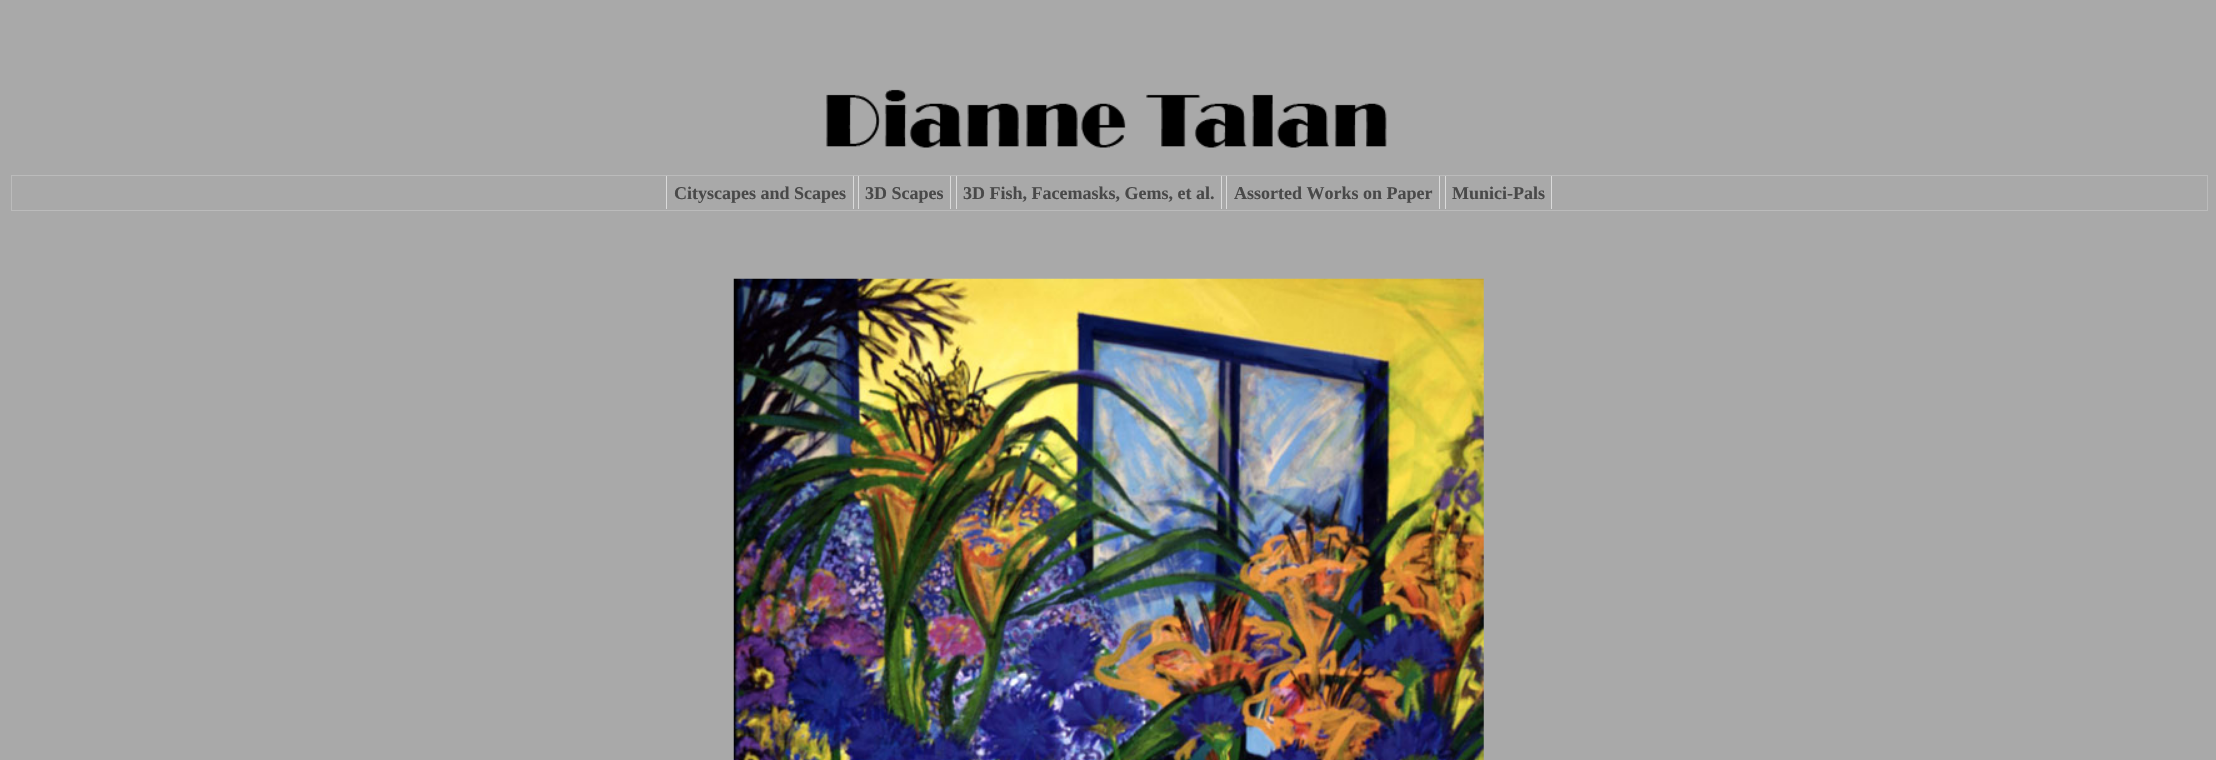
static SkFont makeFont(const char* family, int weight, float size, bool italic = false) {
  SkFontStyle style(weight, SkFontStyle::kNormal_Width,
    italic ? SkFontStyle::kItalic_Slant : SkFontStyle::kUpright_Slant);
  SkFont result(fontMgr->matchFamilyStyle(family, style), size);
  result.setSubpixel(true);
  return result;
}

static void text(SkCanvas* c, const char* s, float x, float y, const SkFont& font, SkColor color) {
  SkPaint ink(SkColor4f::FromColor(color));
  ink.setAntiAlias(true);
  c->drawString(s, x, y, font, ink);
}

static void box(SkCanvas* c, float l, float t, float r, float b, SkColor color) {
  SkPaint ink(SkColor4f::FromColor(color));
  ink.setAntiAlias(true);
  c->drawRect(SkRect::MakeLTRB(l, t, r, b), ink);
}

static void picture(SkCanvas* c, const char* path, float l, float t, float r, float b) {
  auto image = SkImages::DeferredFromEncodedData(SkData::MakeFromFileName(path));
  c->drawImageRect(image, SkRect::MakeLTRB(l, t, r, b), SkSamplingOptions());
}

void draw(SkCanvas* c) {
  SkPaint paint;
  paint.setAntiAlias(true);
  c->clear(0xffa9a9a9);
  picture(c, "img_01.png", 826, 89, 1387, 148);
  paint.setStyle(SkPaint::kStroke_Style);
  paint.setStrokeWidth(1);
  paint.setColor(0xffbbbbbb);
  c->drawRect(SkRect::MakeLTRB(11.5f, 175.5f, 2207.5f, 210.5f), paint);
  SkFont face1 = makeFont("Liberation Serif", 700, 18);
  text(c, "Cityscapes and Scapes", 674, 199, face1, 0xff494949);
  box(c, 853, 176, 854, 209, 0xffdadada);
  box(c, 666, 176, 667, 209, 0xffdadada);
  text(c, "3D Scapes", 865, 199, face1, 0xff494949);
  box(c, 950, 176, 951, 209, 0xffdadada);
  box(c, 858, 176, 859, 209, 0xffdadada);
  text(c, "3D Fish, Facemasks, Gems, et al.", 963, 199, face1, 0xff494949);
  box(c, 1221, 176, 1222, 209, 0xffdadada);
  box(c, 956, 176, 957, 209, 0xffdadada);
  text(c, "Assorted Works on Paper", 1234, 199, face1, 0xff494949);
  box(c, 1439, 176, 1440, 209, 0xffdadada);
  box(c, 1226, 176, 1227, 209, 0xffdadada);
  text(c, "Munici-Pals", 1452, 199, face1, 0xff494949);
  box(c, 1551, 176, 1552, 209, 0xffdadada);
  box(c, 1445, 176, 1446, 209, 0xffdadada);
  picture(c, "img_02.png", 733, 278, 1484, 760);
}
